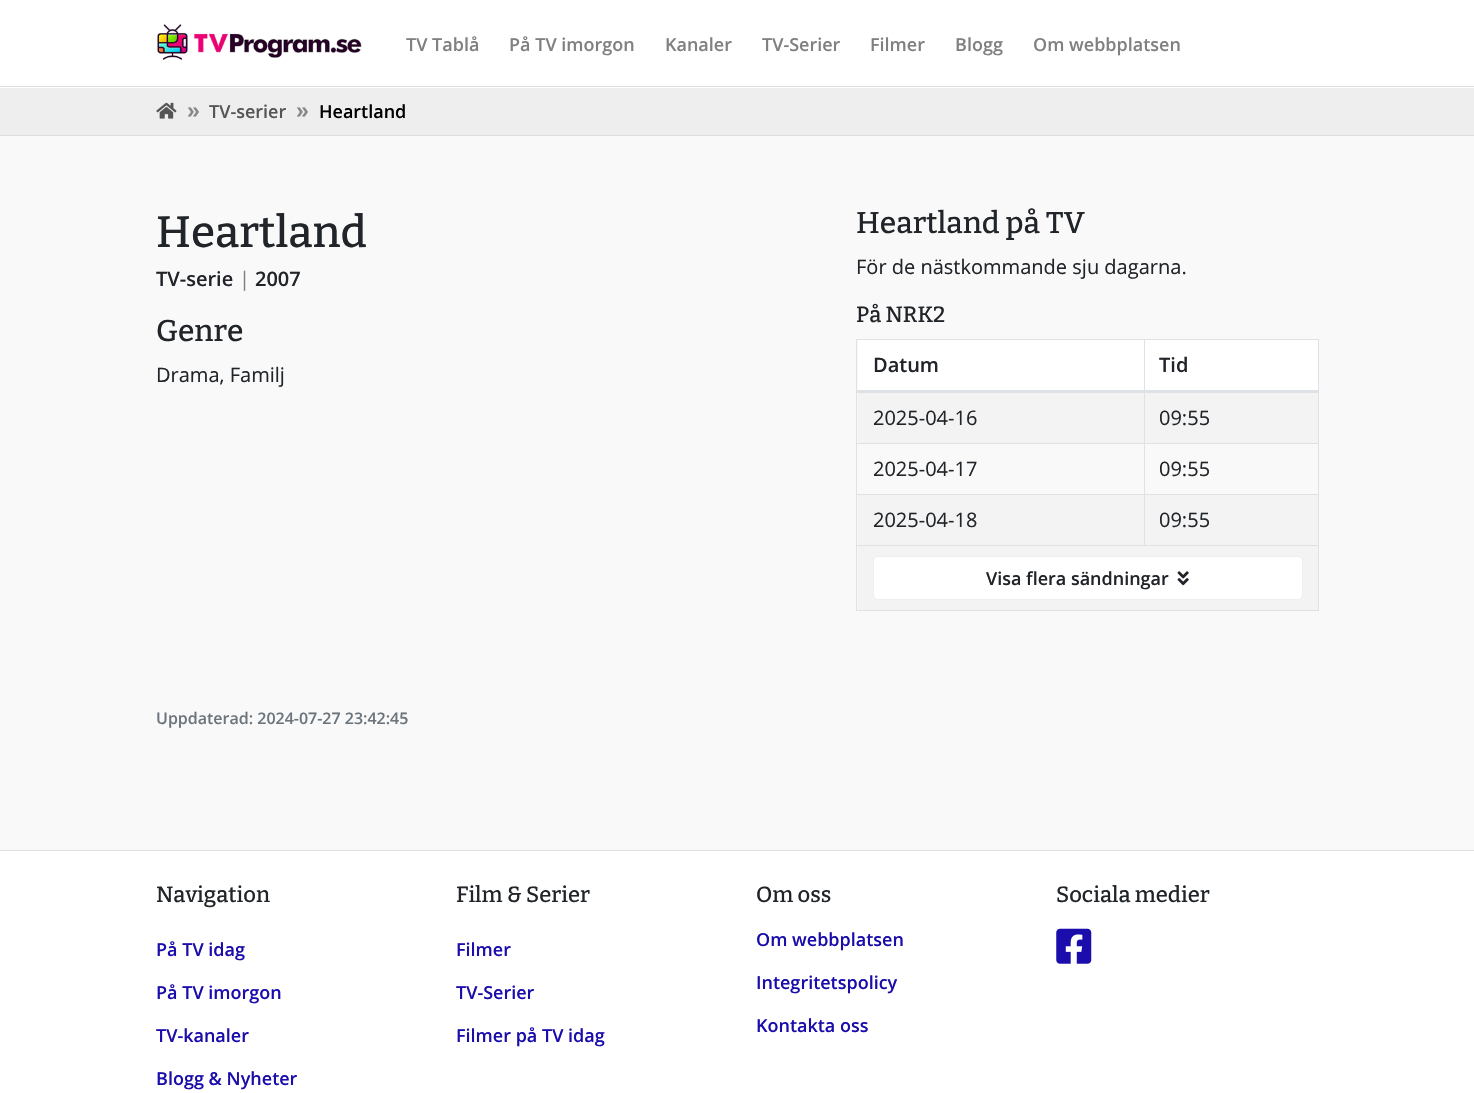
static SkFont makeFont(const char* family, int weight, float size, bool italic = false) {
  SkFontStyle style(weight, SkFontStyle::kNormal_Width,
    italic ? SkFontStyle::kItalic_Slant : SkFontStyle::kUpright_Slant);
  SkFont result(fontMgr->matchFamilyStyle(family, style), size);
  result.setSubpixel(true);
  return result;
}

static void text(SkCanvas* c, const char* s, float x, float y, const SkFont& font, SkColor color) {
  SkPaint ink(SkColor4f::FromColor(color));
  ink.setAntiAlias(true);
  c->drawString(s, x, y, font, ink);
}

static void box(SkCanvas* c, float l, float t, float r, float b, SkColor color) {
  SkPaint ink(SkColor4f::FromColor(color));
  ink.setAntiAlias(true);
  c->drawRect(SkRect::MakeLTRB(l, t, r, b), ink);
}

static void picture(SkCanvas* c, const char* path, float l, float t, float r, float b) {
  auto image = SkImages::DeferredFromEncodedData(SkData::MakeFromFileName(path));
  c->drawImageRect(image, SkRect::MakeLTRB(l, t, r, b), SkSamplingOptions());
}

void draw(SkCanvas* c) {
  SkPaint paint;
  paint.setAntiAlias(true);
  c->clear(0xfff9f9f9);
  box(c, 0, 0, 1474, 88, 0xffffffff);
  box(c, 0, 86, 1474, 87, 0xffdddddd);
  picture(c, "img_01.png", 157, 24, 362, 60);
  SkFont face1 = makeFont("Open Sans", 600, 18);
  text(c, "TV Tablå", 406, 51, face1, 0xff808080);
  text(c, "På TV imorgon", 509, 51, face1, 0xff808080);
  text(c, "Kanaler", 665, 51, face1, 0xff808080);
  text(c, "TV-Serier", 762, 51, face1, 0xff808080);
  text(c, "Filmer", 870, 51, face1, 0xff808080);
  text(c, "Blogg", 955, 51, face1, 0xff808080);
  text(c, "Om webbplatsen", 1033, 51, face1, 0xff808080);
  box(c, 0, 88, 1474, 135, 0xffeeeeee);
  box(c, 0, 135, 1474, 136, 0xffdddddd);
  picture(c, "img_02.png", 156, 102, 177, 119);
  SkFont face2 = makeFont("Liberation Sans", 700, 23);
  text(c, "»", 187, 118, face2, 0xff888888);
  text(c, "TV-serier", 209, 118, face1, 0xff555555);
  text(c, "»", 296, 118, face2, 0xff888888);
  text(c, "Heartland", 319, 118, face1, 0xff000000);
  SkFont face3 = makeFont("Bitter", 500, 44);
  text(c, "Heartland", 156, 247, face3, 0xff212529);
  SkFont face4 = makeFont("Open Sans", 600, 20);
  text(c, "TV-serie", 156, 286, face4, 0xff212529);
  SkFont face5 = makeFont("Open Sans", 400, 20);
  text(c, "|", 239, 286, face5, 0xff808080);
  text(c, "2007", 255, 286, face4, 0xff212529);
  SkFont face6 = makeFont("Bitter", 500, 30);
  text(c, "Genre", 156, 341, face6, 0xff212529);
  text(c, "Drama, Familj", 156, 382, face5, 0xff212529);
  text(c, "Heartland på TV", 856, 233, face6, 0xff212529);
  text(c, "För de nästkommande sju dagarna.", 856, 274, face5, 0xff212529);
  SkFont face7 = makeFont("Bitter", 500, 22);
  text(c, "På NRK2", 856, 322, face7, 0xff212529);
  box(c, 856, 339, 1319, 340, 0xffdee2e6);
  box(c, 1318, 339, 1319, 611, 0xffdee2e6);
  box(c, 856, 610, 1319, 611, 0xffdee2e6);
  box(c, 856, 339, 857, 611, 0xffdee2e6);
  box(c, 858, 340, 1318, 390, 0xffffffff);
  text(c, "Datum", 873, 372, face4, 0xff212529);
  box(c, 858, 393, 1318, 443, 0xfff3f3f3);
  box(c, 1144, 443, 1319, 444, 0xffdee2e6);
  box(c, 1144, 494, 1319, 495, 0xffdee2e6);
  box(c, 858, 495, 1318, 545, 0xfff3f3f3);
  box(c, 856, 545, 1319, 546, 0xffdee2e6);
  box(c, 1144, 494, 1145, 546, 0xffdee2e6);
  box(c, 856, 494, 1145, 495, 0xffdee2e6);
  box(c, 1144, 443, 1145, 495, 0xffdee2e6);
  box(c, 856, 443, 1145, 444, 0xffdee2e6);
  box(c, 1144, 339, 1145, 444, 0xffdee2e6);
  box(c, 856, 390, 1319, 393, 0xffdee2e6);
  text(c, "Tid", 1159, 372, face4, 0xff212529);
  text(c, "2025-04-16", 873, 425, face5, 0xff212529);
  text(c, "09:55", 1159, 425, face5, 0xff212529);
  text(c, "2025-04-17", 873, 476, face5, 0xff212529);
  text(c, "09:55", 1159, 476, face5, 0xff212529);
  text(c, "2025-04-18", 873, 527, face5, 0xff212529);
  text(c, "09:55", 1159, 527, face5, 0xff212529);
  box(c, 858, 546, 1318, 610, 0xfff3f3f3);
  paint.setColor(0xffffffff);
  c->drawRoundRect(SkRect::MakeLTRB(873.5f, 556.5f, 1302.5f, 599.5f), 4.5f, 4.5f, paint);
  paint.setStyle(SkPaint::kStroke_Style);
  paint.setStrokeWidth(1);
  paint.setColor(0xffeeeeee);
  c->drawRoundRect(SkRect::MakeLTRB(873.5f, 556.5f, 1302.5f, 599.5f), 4.5f, 4.5f, paint);
  text(c, "Visa flera sändningar", 986, 585, face1, 0xff212529);
  picture(c, "img_03.png", 1177, 571, 1189, 586);
  SkFont face8 = makeFont("Open Sans", 600, 16);
  text(c, "Uppdaterad: 2024-07-27 23:42:45", 156, 724, face8, 0xff6c757d);
  box(c, 0, 851, 1474, 1093, 0xffffffff);
  box(c, 0, 850, 1474, 851, 0xffdee2e6);
  text(c, "Navigation", 156, 902, face7, 0xff212529);
  text(c, "På TV idag", 156, 956, face1, 0xff1a0dab);
  text(c, "På TV imorgon", 156, 999, face1, 0xff1a0dab);
  text(c, "TV-kanaler", 156, 1042, face1, 0xff1a0dab);
  text(c, "Blogg & Nyheter", 156, 1085, face1, 0xff1a0dab);
  text(c, "Film & Serier", 456, 902, face7, 0xff212529);
  text(c, "Filmer", 456, 956, face1, 0xff1a0dab);
  text(c, "TV-Serier", 456, 999, face1, 0xff1a0dab);
  text(c, "Filmer på TV idag", 456, 1042, face1, 0xff1a0dab);
  text(c, "Om oss", 756, 902, face7, 0xff212529);
  text(c, "Om webbplatsen", 756, 946, face1, 0xff1a0dab);
  text(c, "Integritetspolicy", 756, 989, face1, 0xff1a0dab);
  text(c, "Kontakta oss", 756, 1032, face1, 0xff1a0dab);
  text(c, "Sociala medier", 1056, 902, face7, 0xff212529);
  picture(c, "img_04.png", 1056, 928, 1092, 964);
}
